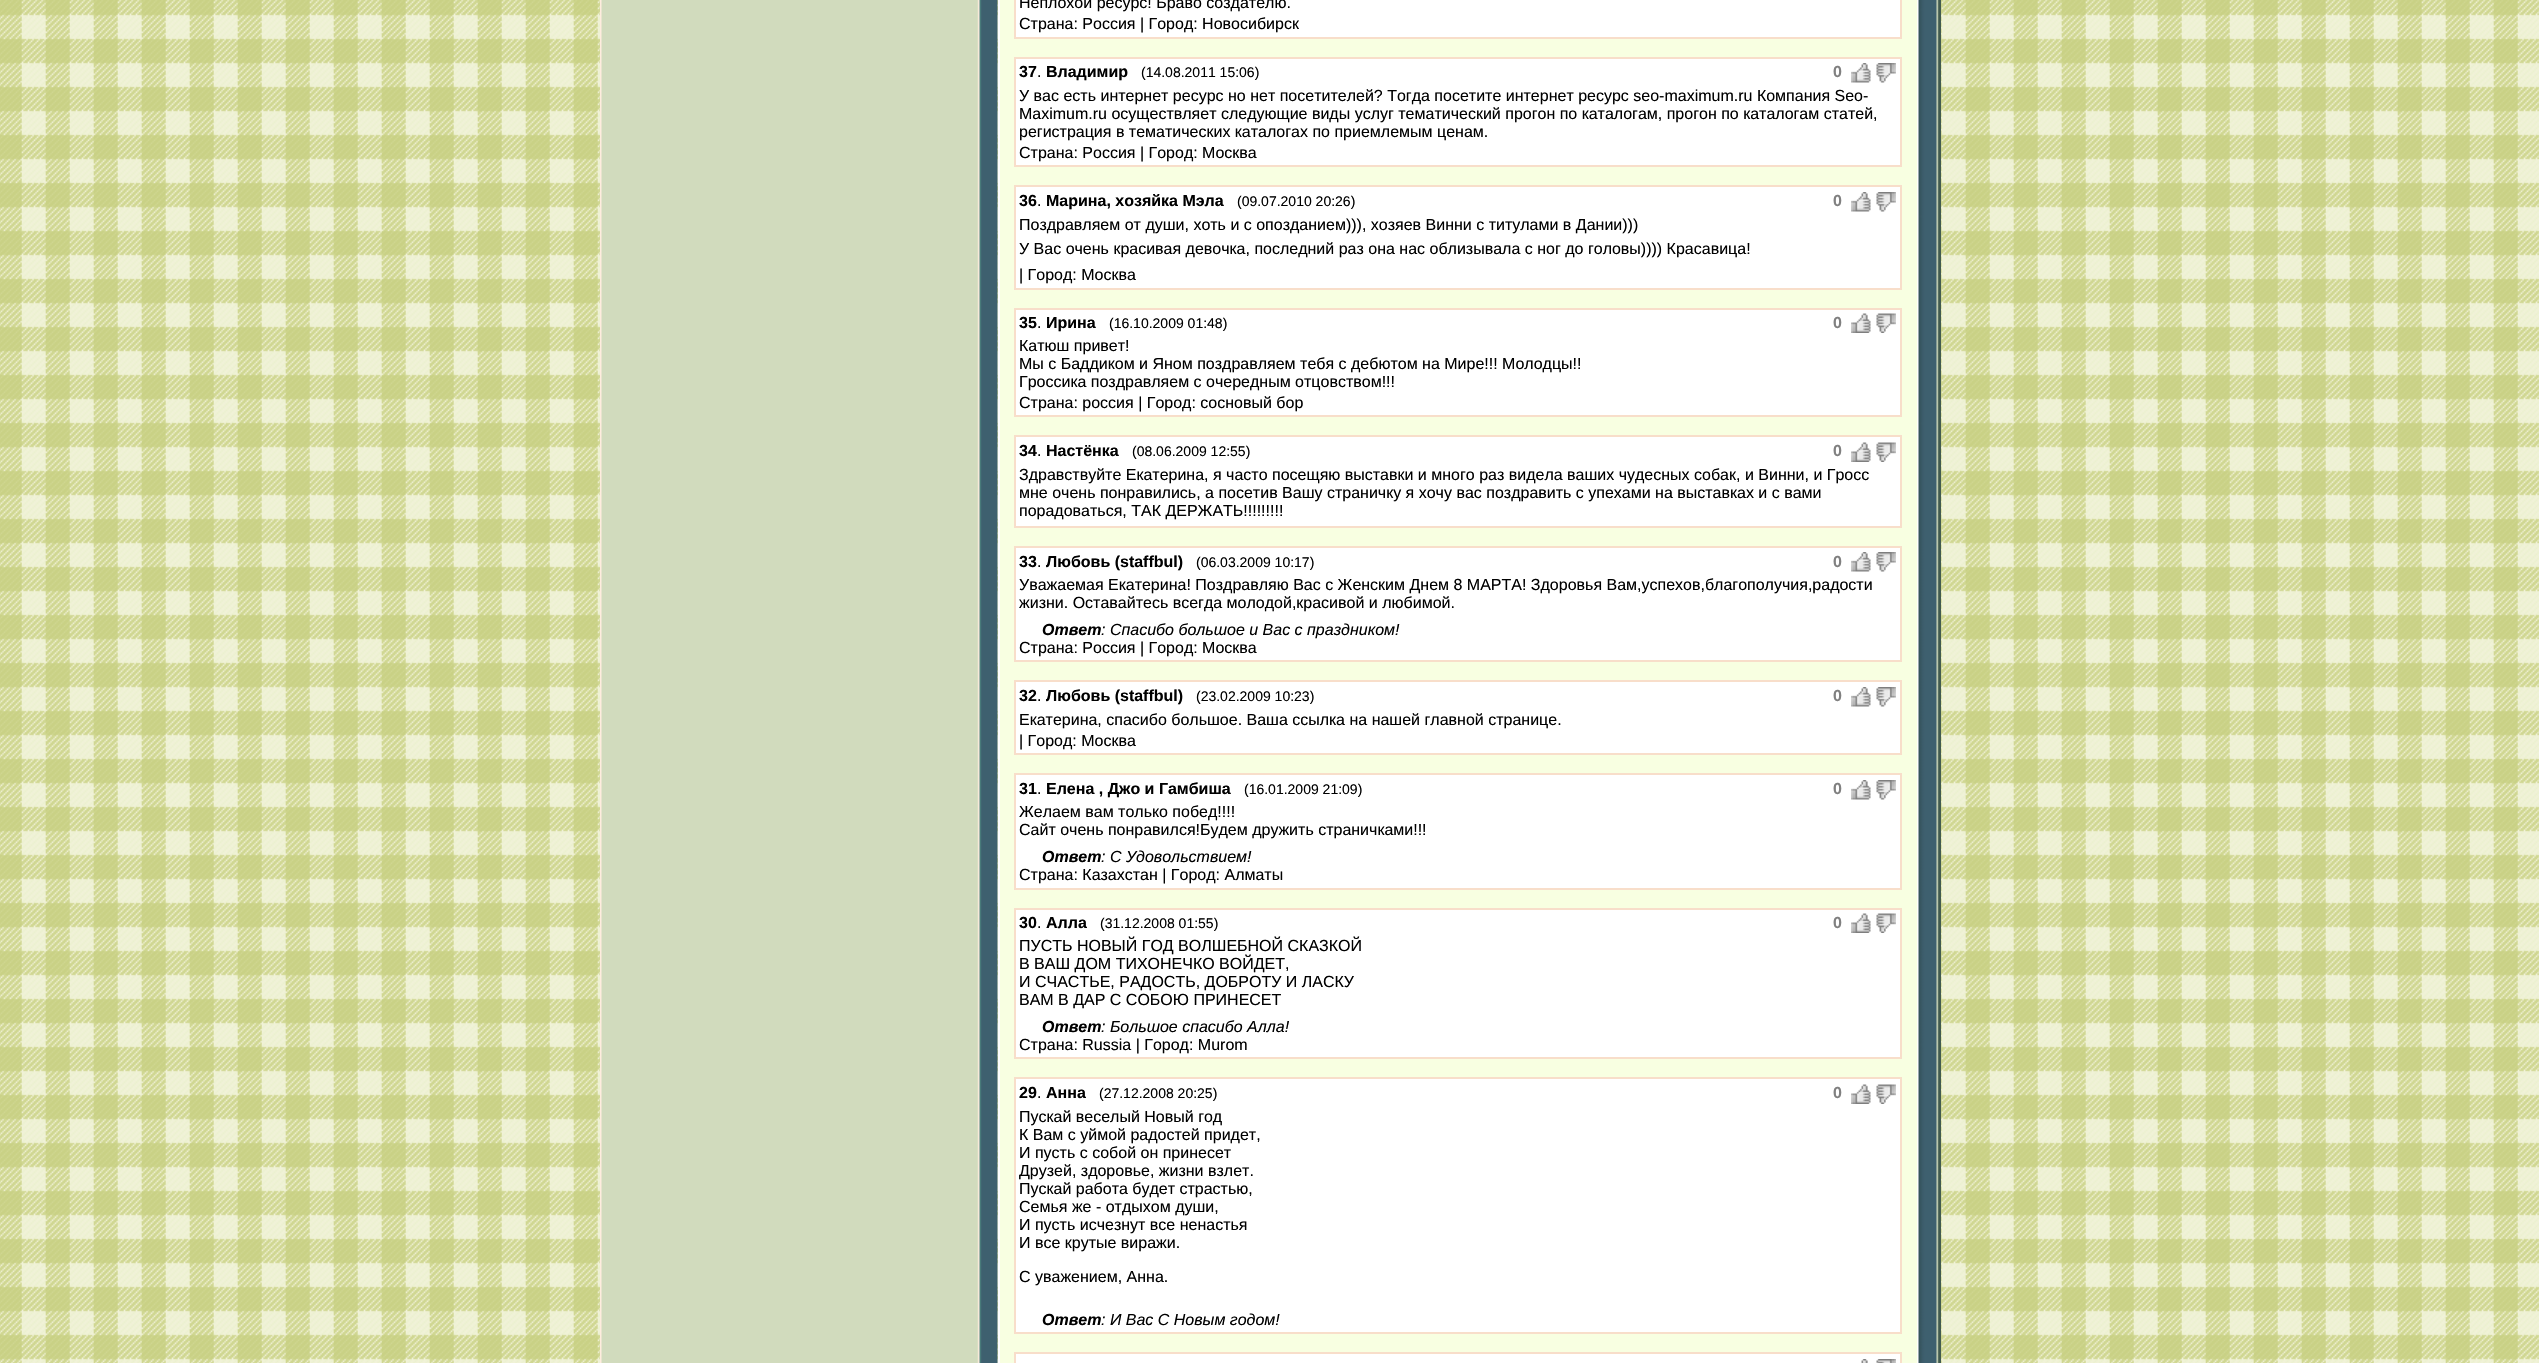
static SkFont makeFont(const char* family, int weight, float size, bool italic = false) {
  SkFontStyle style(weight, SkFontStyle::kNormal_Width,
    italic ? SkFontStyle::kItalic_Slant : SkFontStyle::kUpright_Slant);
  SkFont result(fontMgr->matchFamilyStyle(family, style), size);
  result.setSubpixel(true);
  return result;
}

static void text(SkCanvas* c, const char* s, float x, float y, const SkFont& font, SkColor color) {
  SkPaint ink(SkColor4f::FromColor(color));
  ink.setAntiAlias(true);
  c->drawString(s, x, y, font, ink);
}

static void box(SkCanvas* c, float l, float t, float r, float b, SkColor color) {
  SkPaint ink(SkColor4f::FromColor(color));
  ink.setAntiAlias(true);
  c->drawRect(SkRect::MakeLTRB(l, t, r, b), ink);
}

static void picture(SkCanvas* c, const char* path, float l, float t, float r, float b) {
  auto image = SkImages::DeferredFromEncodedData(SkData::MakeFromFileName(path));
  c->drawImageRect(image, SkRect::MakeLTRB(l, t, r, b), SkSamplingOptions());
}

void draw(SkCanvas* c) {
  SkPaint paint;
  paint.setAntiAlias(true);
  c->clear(0xffffffff);
  picture(c, "img_01.png", 0, 0, 2539, 1363);
  picture(c, "img_02.png", 600, 0, 998, 1363);
  box(c, 1000, 0, 1917, 1363, 0xfff8ffe1);
  box(c, 1917, 0, 1919, 1363, 0xfffefefe);
  box(c, 998, 0, 1000, 1363, 0xfffefefe);
  paint.setColor(0xffffffff);
  c->drawRect(SkRect::MakeLTRB(1015, -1, 1901, 38), paint);
  paint.setStyle(SkPaint::kStroke_Style);
  paint.setStrokeWidth(2);
  paint.setColor(0xfff8deca);
  c->drawRect(SkRect::MakeLTRB(1015, -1, 1901, 38), paint);
  SkFont face1 = makeFont("Liberation Sans", 400, 16);
  text(c, "Неплохой ресурс! Браво создателю.", 1019, 8, face1, 0xff000000);
  text(c, "Страна: Россия | Город: Новосибирск", 1019, 29, face1, 0xff000000);
  paint.setStyle(SkPaint::kFill_Style);
  paint.setColor(0xffffffff);
  c->drawRect(SkRect::MakeLTRB(1015, 58, 1901, 166), paint);
  paint.setStyle(SkPaint::kStroke_Style);
  paint.setColor(0xfff8deca);
  c->drawRect(SkRect::MakeLTRB(1015, 58, 1901, 166), paint);
  SkFont face2 = makeFont("Liberation Sans", 700, 16);
  text(c, "37", 1019, 77, face2, 0xff000000);
  text(c, ".", 1037, 77, face1, 0xff000000);
  text(c, "Владимир", 1046, 77, face2, 0xff000000);
  SkFont face3 = makeFont("Liberation Sans", 400, 14);
  text(c, "(14.08.2011 15:06)", 1141, 77, face3, 0xff000000);
  text(c, "0", 1833, 77, face2, 0xff808080);
  picture(c, "img_03.png", 1851, 63, 1871, 83);
  picture(c, "img_04.png", 1876, 63, 1896, 83);
  text(c, "У вас есть интернет ресурс но нет посетителей? Тогда посетите интернет ресурс seo-maximum.ru Компания Seo-", 1019, 101, face1, 0xff000000);
  text(c, "Maximum.ru осуществляет следующие виды услуг тематический прогон по каталогам, прогон по каталогам статей,", 1019, 119, face1, 0xff000000);
  text(c, "регистрация в тематических каталогах по приемлемым ценам.", 1019, 137, face1, 0xff000000);
  text(c, "Страна: Россия | Город: Москва", 1019, 158, face1, 0xff000000);
  paint.setStyle(SkPaint::kFill_Style);
  paint.setColor(0xffffffff);
  c->drawRect(SkRect::MakeLTRB(1015, 186, 1901, 289), paint);
  paint.setStyle(SkPaint::kStroke_Style);
  paint.setColor(0xfff8deca);
  c->drawRect(SkRect::MakeLTRB(1015, 186, 1901, 289), paint);
  text(c, "36", 1019, 206, face2, 0xff000000);
  text(c, ".", 1037, 206, face1, 0xff000000);
  text(c, "Марина, хозяйка Мэла", 1046, 206, face2, 0xff000000);
  text(c, "(09.07.2010 20:26)", 1237, 206, face3, 0xff000000);
  text(c, "0", 1833, 206, face2, 0xff808080);
  picture(c, "img_03.png", 1851, 192, 1871, 212);
  picture(c, "img_04.png", 1876, 192, 1896, 212);
  text(c, "Поздравляем от души, хоть и с опозданием))), хозяев Винни с титулами в Дании)))", 1019, 230, face1, 0xff000000);
  text(c, "У Вас очень красивая девочка, последний раз она нас облизывала с ног до головы)))) Красавица!", 1019, 254, face1, 0xff000000);
  text(c, "| Город: Москва", 1019, 280, face1, 0xff000000);
  paint.setStyle(SkPaint::kFill_Style);
  paint.setColor(0xffffffff);
  c->drawRect(SkRect::MakeLTRB(1015, 309, 1901, 416), paint);
  paint.setStyle(SkPaint::kStroke_Style);
  paint.setColor(0xfff8deca);
  c->drawRect(SkRect::MakeLTRB(1015, 309, 1901, 416), paint);
  text(c, "35", 1019, 328, face2, 0xff000000);
  text(c, ".", 1037, 328, face1, 0xff000000);
  text(c, "Ирина", 1046, 328, face2, 0xff000000);
  text(c, "(16.10.2009 01:48)", 1109, 328, face3, 0xff000000);
  text(c, "0", 1833, 328, face2, 0xff808080);
  picture(c, "img_05.png", 1851, 313, 1871, 333);
  picture(c, "img_06.png", 1876, 313, 1896, 333);
  text(c, "Катюш привет!", 1019, 351, face1, 0xff000000);
  text(c, "Мы с Баддиком и Яном поздравляем тебя с дебютом на Мире!!! Молодцы!!", 1019, 369, face1, 0xff000000);
  text(c, "Гроссика поздравляем с очередным отцовством!!!", 1019, 387, face1, 0xff000000);
  text(c, "Страна: россия | Город: сосновый бор", 1019, 408, face1, 0xff000000);
  paint.setStyle(SkPaint::kFill_Style);
  paint.setColor(0xffffffff);
  c->drawRect(SkRect::MakeLTRB(1015, 436, 1901, 527), paint);
  paint.setStyle(SkPaint::kStroke_Style);
  paint.setColor(0xfff8deca);
  c->drawRect(SkRect::MakeLTRB(1015, 436, 1901, 527), paint);
  text(c, "34", 1019, 456, face2, 0xff000000);
  text(c, ".", 1037, 456, face1, 0xff000000);
  text(c, "Настёнка", 1046, 456, face2, 0xff000000);
  text(c, "(08.06.2009 12:55)", 1132, 456, face3, 0xff000000);
  text(c, "0", 1833, 456, face2, 0xff808080);
  picture(c, "img_05.png", 1851, 442, 1871, 462);
  picture(c, "img_06.png", 1876, 442, 1896, 462);
  text(c, "Здравствуйте Екатерина, я часто посещяю выставки и много раз видела ваших чудесных собак, и Винни, и Гросс", 1019, 480, face1, 0xff000000);
  text(c, "мне очень понравились, а посетив Вашу страничку я хочу вас поздравить с упехами на выставках и с вами", 1019, 498, face1, 0xff000000);
  text(c, "порадоваться, ТАК ДЕРЖАТЬ!!!!!!!!!", 1019, 516, face1, 0xff000000);
  paint.setStyle(SkPaint::kFill_Style);
  paint.setColor(0xffffffff);
  c->drawRect(SkRect::MakeLTRB(1015, 547, 1901, 661), paint);
  paint.setStyle(SkPaint::kStroke_Style);
  paint.setColor(0xfff8deca);
  c->drawRect(SkRect::MakeLTRB(1015, 547, 1901, 661), paint);
  text(c, "33", 1019, 567, face2, 0xff000000);
  text(c, ".", 1037, 567, face1, 0xff000000);
  text(c, "Любовь (staffbul)", 1046, 567, face2, 0xff000000);
  text(c, "(06.03.2009 10:17)", 1196, 567, face3, 0xff000000);
  text(c, "0", 1833, 567, face2, 0xff808080);
  picture(c, "img_03.png", 1851, 552, 1871, 572);
  picture(c, "img_04.png", 1876, 552, 1896, 572);
  text(c, "Уважаемая Екатерина! Поздравляю Вас с Женским Днем 8 МАРТА! Здоровья Вам,успехов,благополучия,радости", 1019, 590, face1, 0xff000000);
  text(c, "жизни. Оставайтесь всегда молодой,красивой и любимой.", 1019, 608, face1, 0xff000000);
  SkFont face4 = makeFont("Liberation Sans", 700, 16, true);
  text(c, "Ответ", 1042, 635, face4, 0xff000000);
  SkFont face5 = makeFont("Liberation Sans", 400, 16, true);
  text(c, ": Спасибо большое и Вас с праздником!", 1101, 635, face5, 0xff000000);
  text(c, "Страна: Россия | Город: Москва", 1019, 653, face1, 0xff000000);
  paint.setStyle(SkPaint::kFill_Style);
  paint.setColor(0xffffffff);
  c->drawRect(SkRect::MakeLTRB(1015, 681, 1901, 754), paint);
  paint.setStyle(SkPaint::kStroke_Style);
  paint.setColor(0xfff8deca);
  c->drawRect(SkRect::MakeLTRB(1015, 681, 1901, 754), paint);
  text(c, "32", 1019, 701, face2, 0xff000000);
  text(c, ".", 1037, 701, face1, 0xff000000);
  text(c, "Любовь (staffbul)", 1046, 701, face2, 0xff000000);
  text(c, "(23.02.2009 10:23)", 1196, 701, face3, 0xff000000);
  text(c, "0", 1833, 701, face2, 0xff808080);
  picture(c, "img_03.png", 1851, 687, 1871, 707);
  picture(c, "img_04.png", 1876, 687, 1896, 707);
  text(c, "Екатерина, спасибо большое. Ваша ссылка на нашей главной странице.", 1019, 725, face1, 0xff000000);
  text(c, "| Город: Москва", 1019, 746, face1, 0xff000000);
  paint.setStyle(SkPaint::kFill_Style);
  paint.setColor(0xffffffff);
  c->drawRect(SkRect::MakeLTRB(1015, 774, 1901, 889), paint);
  paint.setStyle(SkPaint::kStroke_Style);
  paint.setColor(0xfff8deca);
  c->drawRect(SkRect::MakeLTRB(1015, 774, 1901, 889), paint);
  text(c, "31", 1019, 794, face2, 0xff000000);
  text(c, ".", 1037, 794, face1, 0xff000000);
  text(c, "Елена , Джо и Гамбиша", 1046, 794, face2, 0xff000000);
  text(c, "(16.01.2009 21:09)", 1244, 794, face3, 0xff000000);
  text(c, "0", 1833, 794, face2, 0xff808080);
  picture(c, "img_03.png", 1851, 780, 1871, 800);
  picture(c, "img_04.png", 1876, 780, 1896, 800);
  text(c, "Желаем вам только побед!!!!", 1019, 817, face1, 0xff000000);
  text(c, "Сайт очень понравился!Будем дружить страничками!!!", 1019, 835, face1, 0xff000000);
  text(c, "Ответ", 1042, 862, face4, 0xff000000);
  text(c, ": С Удовольствием!", 1101, 862, face5, 0xff000000);
  text(c, "Страна: Казахстан | Город: Алматы", 1019, 880, face1, 0xff000000);
  paint.setStyle(SkPaint::kFill_Style);
  paint.setColor(0xffffffff);
  c->drawRect(SkRect::MakeLTRB(1015, 909, 1901, 1058), paint);
  paint.setStyle(SkPaint::kStroke_Style);
  paint.setColor(0xfff8deca);
  c->drawRect(SkRect::MakeLTRB(1015, 909, 1901, 1058), paint);
  text(c, "30", 1019, 928, face2, 0xff000000);
  text(c, ".", 1037, 928, face1, 0xff000000);
  text(c, "Алла", 1046, 928, face2, 0xff000000);
  text(c, "(31.12.2008 01:55)", 1100, 928, face3, 0xff000000);
  text(c, "0", 1833, 928, face2, 0xff808080);
  picture(c, "img_05.png", 1851, 913, 1871, 933);
  picture(c, "img_06.png", 1876, 913, 1896, 933);
  text(c, "ПУСТЬ НОВЫЙ ГОД ВОЛШЕБНОЙ СКАЗКОЙ", 1019, 951, face1, 0xff000000);
  text(c, "В ВАШ ДОМ ТИХОНЕЧКО ВОЙДЕТ,", 1019, 969, face1, 0xff000000);
  text(c, "И СЧАСТЬЕ, РАДОСТЬ, ДОБРОТУ И ЛАСКУ", 1019, 987, face1, 0xff000000);
  text(c, "ВАМ В ДАР С СОБОЮ ПРИНЕСЕТ", 1019, 1005, face1, 0xff000000);
  text(c, "Ответ", 1042, 1032, face4, 0xff000000);
  text(c, ": Большое спасибо Алла!", 1101, 1032, face5, 0xff000000);
  text(c, "Страна: Russia | Город: Murom", 1019, 1050, face1, 0xff000000);
  paint.setStyle(SkPaint::kFill_Style);
  paint.setColor(0xffffffff);
  c->drawRect(SkRect::MakeLTRB(1015, 1078, 1901, 1333), paint);
  paint.setStyle(SkPaint::kStroke_Style);
  paint.setColor(0xfff8deca);
  c->drawRect(SkRect::MakeLTRB(1015, 1078, 1901, 1333), paint);
  text(c, "29", 1019, 1098, face2, 0xff000000);
  text(c, ".", 1037, 1098, face1, 0xff000000);
  text(c, "Анна", 1046, 1098, face2, 0xff000000);
  text(c, "(27.12.2008 20:25)", 1099, 1098, face3, 0xff000000);
  text(c, "0", 1833, 1098, face2, 0xff808080);
  picture(c, "img_05.png", 1851, 1084, 1871, 1104);
  picture(c, "img_06.png", 1876, 1084, 1896, 1104);
  text(c, "Пyскай веселый Hовый год", 1019, 1122, face1, 0xff000000);
  text(c, "К Вам с yймой pадостей пpидет,", 1019, 1140, face1, 0xff000000);
  text(c, "И пyсть с собой он пpинесет", 1019, 1158, face1, 0xff000000);
  text(c, "Дpyзей, здоpовье, жизни взлет.", 1019, 1176, face1, 0xff000000);
  text(c, "Пyскай pабота бyдет стpастью,", 1019, 1194, face1, 0xff000000);
  text(c, "Семья же - отдыхом дyши,", 1019, 1212, face1, 0xff000000);
  text(c, "И пyсть исчезнyт все ненастья", 1019, 1230, face1, 0xff000000);
  text(c, "И все кpyтые виpажи.", 1019, 1248, face1, 0xff000000);
  text(c, "С уважением, Анна.", 1019, 1282, face1, 0xff000000);
  text(c, "Ответ", 1042, 1325, face4, 0xff000000);
  text(c, ": И Вас С Новым годом!", 1101, 1325, face5, 0xff000000);
  paint.setStyle(SkPaint::kFill_Style);
  paint.setColor(0xffffffff);
  c->drawRect(SkRect::MakeLTRB(1015, 1353, 1901, 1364), paint);
  paint.setStyle(SkPaint::kStroke_Style);
  paint.setColor(0xfff8deca);
  c->drawRect(SkRect::MakeLTRB(1015, 1353, 1901, 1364), paint);
  picture(c, "img_07.png", 1861, 1359, 1868, 1363);
  picture(c, "img_08.png", 1876, 1359, 1896, 1363);
  picture(c, "img_09.png", 1918, 0, 1941, 1363);
}
